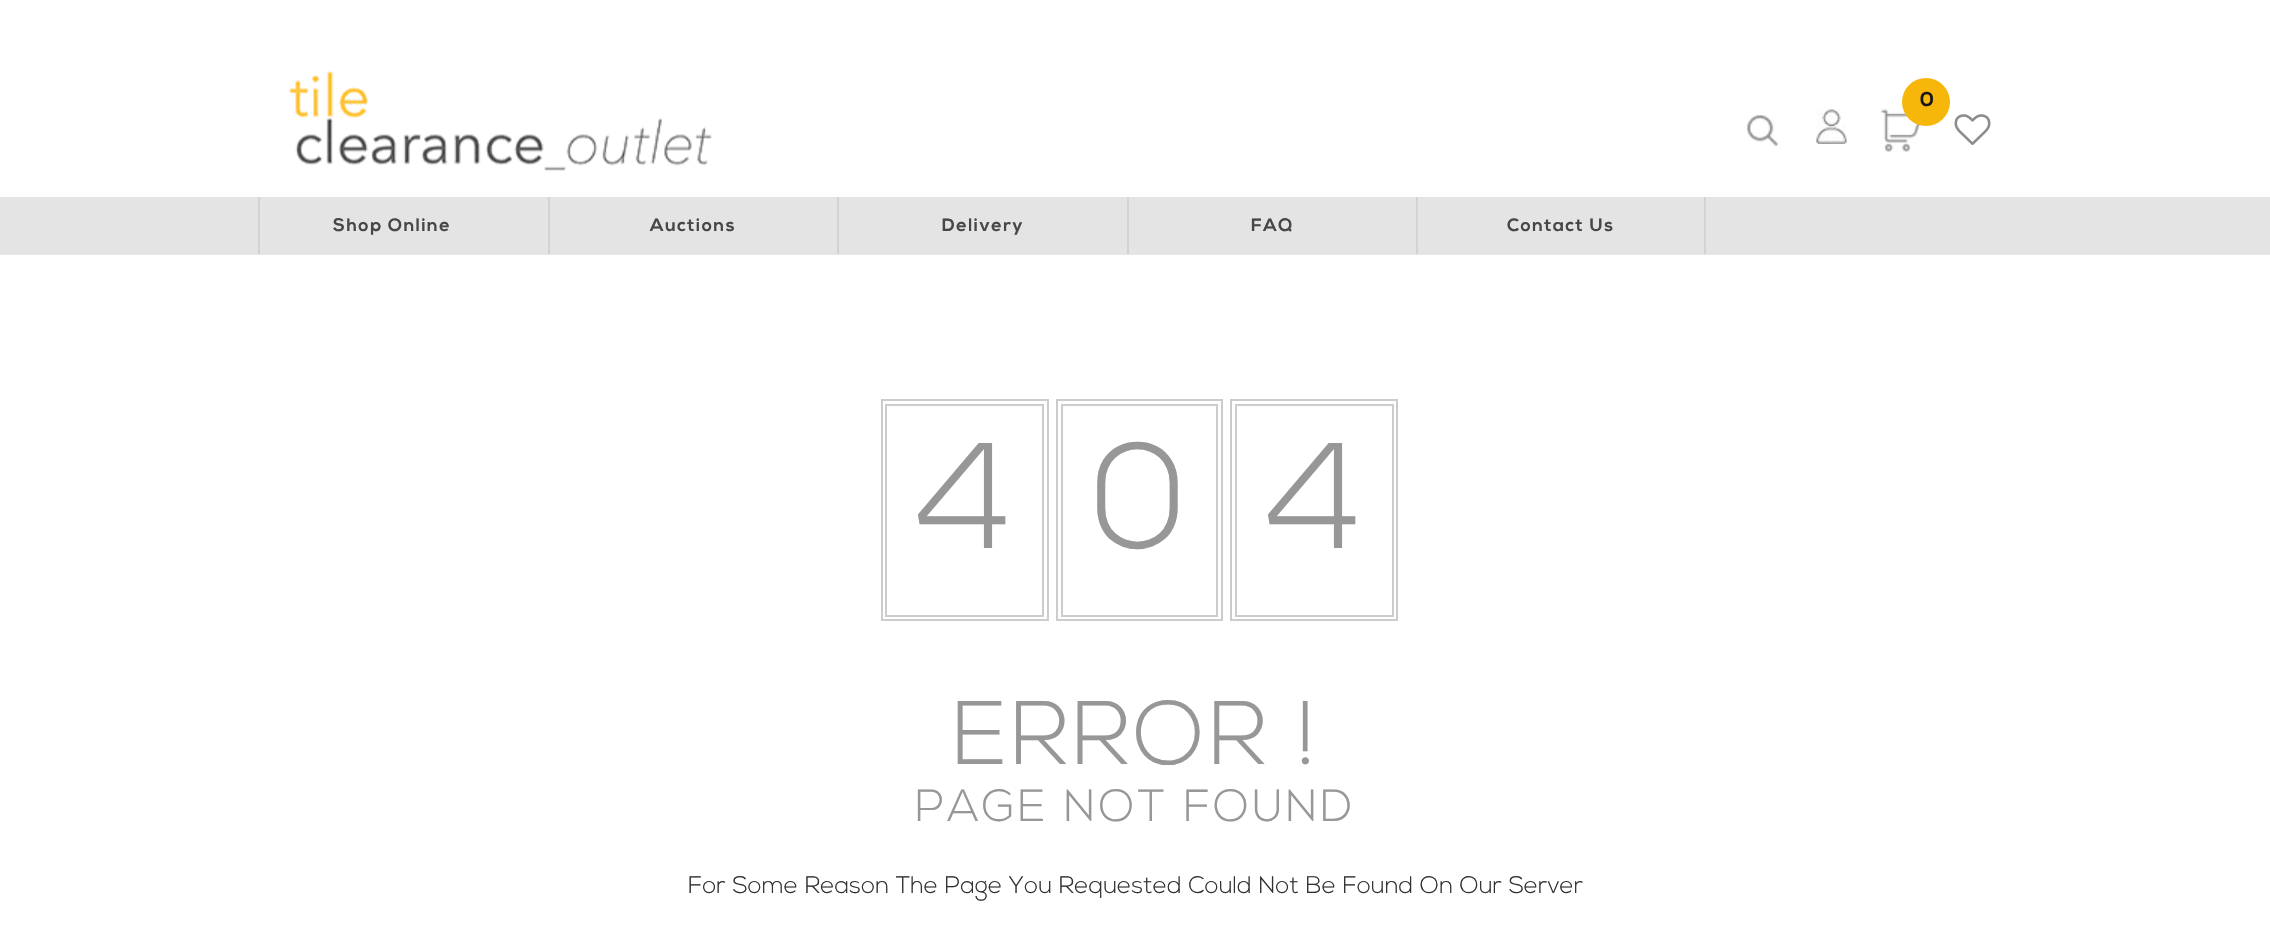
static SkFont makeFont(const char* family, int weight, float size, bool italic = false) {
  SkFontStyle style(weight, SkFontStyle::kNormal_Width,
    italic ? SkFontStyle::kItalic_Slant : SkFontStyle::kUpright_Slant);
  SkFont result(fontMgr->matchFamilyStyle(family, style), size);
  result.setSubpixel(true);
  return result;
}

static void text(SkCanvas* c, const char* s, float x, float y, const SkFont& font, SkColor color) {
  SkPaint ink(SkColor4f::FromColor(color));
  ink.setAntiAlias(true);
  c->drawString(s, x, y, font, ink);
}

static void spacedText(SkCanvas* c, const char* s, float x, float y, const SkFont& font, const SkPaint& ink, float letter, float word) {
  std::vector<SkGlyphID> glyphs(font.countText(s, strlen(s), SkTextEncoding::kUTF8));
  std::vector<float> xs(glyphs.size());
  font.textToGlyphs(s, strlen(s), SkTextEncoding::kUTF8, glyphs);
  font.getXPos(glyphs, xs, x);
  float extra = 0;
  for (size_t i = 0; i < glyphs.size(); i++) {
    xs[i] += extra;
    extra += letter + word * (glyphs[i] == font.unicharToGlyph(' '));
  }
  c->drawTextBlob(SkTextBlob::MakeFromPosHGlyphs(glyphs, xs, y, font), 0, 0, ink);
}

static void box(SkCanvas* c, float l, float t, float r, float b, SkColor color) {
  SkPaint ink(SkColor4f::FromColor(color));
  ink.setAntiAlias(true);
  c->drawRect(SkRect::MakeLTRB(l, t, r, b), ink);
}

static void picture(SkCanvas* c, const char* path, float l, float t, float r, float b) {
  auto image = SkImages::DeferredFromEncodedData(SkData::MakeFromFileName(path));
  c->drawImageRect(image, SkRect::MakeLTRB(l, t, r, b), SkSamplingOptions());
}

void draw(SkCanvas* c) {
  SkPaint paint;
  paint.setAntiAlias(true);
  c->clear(0xffffffff);
  box(c, 0, 254, 2270, 255, 0xffe6e6e6);
  picture(c, "img_01.png", 289, 71, 712, 171);
  picture(c, "img_02.png", 1880, 109, 1922, 152);
  paint.setColor(0xfff7b60a);
  c->drawCircle(1926, 102, 24, paint);
  SkFont face1 = makeFont("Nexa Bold", 700, 20);
  text(c, "0", 1920, 106, face1, 0xff171717);
  picture(c, "img_03.png", 1747, 115, 1778, 146);
  picture(c, "img_04.png", 1816, 109, 1847, 144);
  picture(c, "img_05.png", 1954, 114, 1991, 145);
  box(c, 0, 197, 2270, 254, 0xffe4e4e4);
  box(c, 258, 197, 260, 254, 0xffd3d3d3);
  SkFont face2 = makeFont("Nexa Bold", 700, 18);
  paint.setColor(0xff474747);
  spacedText(c, "Shop Online", 333, 231, face2, paint, 1.5f, 0);
  box(c, 548, 197, 550, 254, 0xffd3d3d3);
  spacedText(c, "Auctions", 650, 231, face2, paint, 1.5f, 0);
  box(c, 837, 197, 839, 254, 0xffd3d3d3);
  spacedText(c, "Delivery", 942, 231, face2, paint, 1.5f, 0);
  box(c, 1127, 197, 1129, 254, 0xffd3d3d3);
  spacedText(c, "FAQ", 1251, 231, face2, paint, 1.5f, 0);
  box(c, 1704, 197, 1706, 254, 0xffd3d3d3);
  box(c, 1416, 197, 1418, 254, 0xffd3d3d3);
  spacedText(c, "Contact Us", 1507, 231, face2, paint, 1.5f, 0);
  paint.setStyle(SkPaint::kStroke_Style);
  paint.setStrokeWidth(2);
  paint.setColor(0xffcccccc);
  c->drawRect(SkRect::MakeLTRB(882, 400, 1048, 620), paint);
  c->drawRect(SkRect::MakeLTRB(886, 405, 1043, 616), paint);
  SkFont face3 = makeFont("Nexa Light", 300, 150);
  text(c, "4", 916, 548, face3, 0xff979797);
  c->drawRect(SkRect::MakeLTRB(1057, 400, 1222, 620), paint);
  c->drawRect(SkRect::MakeLTRB(1062, 405, 1217, 616), paint);
  text(c, "0", 1092, 548, face3, 0xff979797);
  c->drawRect(SkRect::MakeLTRB(1231, 400, 1397, 620), paint);
  c->drawRect(SkRect::MakeLTRB(1236, 405, 1393, 616), paint);
  text(c, "4", 1266, 548, face3, 0xff979797);
  SkFont face4 = makeFont("Nexa Light", 300, 90);
  paint.setStyle(SkPaint::kFill_Style);
  paint.setColor(0xff979797);
  spacedText(c, "ERROR !", 952, 764, face4, paint, 3, 0);
  SkFont face5 = makeFont("Nexa Light", 300, 45);
  spacedText(c, "PAGE NOT FOUND", 915, 821, face5, paint, 3, 0);
  SkFont face6 = makeFont("Nexa Light", 300, 24);
  text(c, "For Some Reason The Page You Requested Could Not Be Found On Our Server", 688, 893, face6, 0xff302f33);
}
